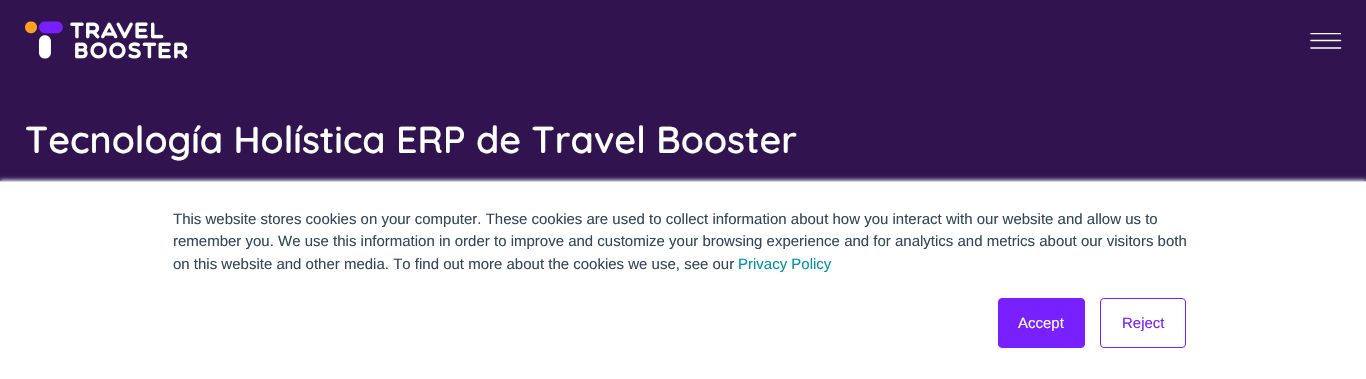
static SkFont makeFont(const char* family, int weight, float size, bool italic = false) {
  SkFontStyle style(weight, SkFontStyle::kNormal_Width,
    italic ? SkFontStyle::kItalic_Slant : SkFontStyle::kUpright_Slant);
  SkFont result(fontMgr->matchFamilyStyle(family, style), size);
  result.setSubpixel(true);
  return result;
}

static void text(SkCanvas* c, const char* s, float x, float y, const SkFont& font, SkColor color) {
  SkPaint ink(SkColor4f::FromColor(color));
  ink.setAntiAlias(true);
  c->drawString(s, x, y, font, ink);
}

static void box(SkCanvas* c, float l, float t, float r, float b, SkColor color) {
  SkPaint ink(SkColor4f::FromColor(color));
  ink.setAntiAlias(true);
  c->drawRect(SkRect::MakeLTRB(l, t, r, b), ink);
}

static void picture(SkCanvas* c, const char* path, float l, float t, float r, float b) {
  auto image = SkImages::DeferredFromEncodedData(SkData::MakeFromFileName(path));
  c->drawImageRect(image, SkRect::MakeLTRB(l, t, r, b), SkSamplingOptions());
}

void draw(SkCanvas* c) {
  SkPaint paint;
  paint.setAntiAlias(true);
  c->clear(0xff31134f);
  picture(c, "img_01.png", 25, 21, 188, 59);
  c->save();
  c->clipRect(SkRect::MakeLTRB(1310, 33, 1341, 49));
  paint.setStyle(SkPaint::kStroke_Style);
  paint.setStrokeWidth(1.6f);
  paint.setStrokeCap(SkPaint::kRound_Cap);
  paint.setColor(0xffffffff);
  c->drawPath(SkPathBuilder().moveTo(1340.5f, 33.5f).lineTo(1311, 33.5f).detach(), paint);
  c->restore();
  c->drawPath(SkPathBuilder().moveTo(1340.5f, 40.5f).lineTo(1311, 40.5f).moveTo(1340.5f, 48).lineTo(1311, 48).detach(), paint);
  SkFont face1 = makeFont("Quicksand", 600, 37.5f);
  text(c, "Tecnología Holística ERP de Travel Booster", 25, 153, face1, 0xffffffff);
  paint.setStyle(SkPaint::kFill_Style);
  paint.setColor(0xffeaf0f6);
  paint.setMaskFilter(SkMaskFilter::MakeBlur(kNormal_SkBlurStyle, 2));
  c->drawRect(SkRect::MakeLTRB(0, 180, 1366, 379), paint);
  paint.setMaskFilter(nullptr);
  box(c, 0, 182, 1366, 379, 0xffffffff);
  box(c, 0, 181, 1366, 182, 0xffcbd6e2);
  SkFont face2 = makeFont("Liberation Sans", 400, 15);
  text(c, "This website stores cookies on your computer. These cookies are used to collect information about how you interact with our website and allow us to", 173, 224, face2, 0xff33475b);
  text(c, "remember you. We use this information in order to improve and customize your browsing experience and for analytics and metrics about our visitors both", 173, 246, face2, 0xff33475b);
  text(c, "on this website and other media. To find out more about the cookies we use, see our", 173, 269, face2, 0xff33475b);
  text(c, "Privacy Policy", 738, 269, face2, 0xff0091ae);
  paint.setColor(0xff7820fe);
  c->drawRoundRect(SkRect::MakeLTRB(998.5f, 298.5f, 1084.5f, 347.5f), 3.5f, 3.5f, paint);
  paint.setStyle(SkPaint::kStroke_Style);
  paint.setStrokeWidth(1);
  paint.setStrokeCap(SkPaint::kButt_Cap);
  c->drawRoundRect(SkRect::MakeLTRB(998.5f, 298.5f, 1084.5f, 347.5f), 3.5f, 3.5f, paint);
  text(c, "Accept", 1018, 328, face2, 0xffffffff);
  c->drawRoundRect(SkRect::MakeLTRB(1100.5f, 298.5f, 1185.5f, 347.5f), 3.5f, 3.5f, paint);
  text(c, "Reject", 1122, 328, face2, 0xff7820fe);
}
